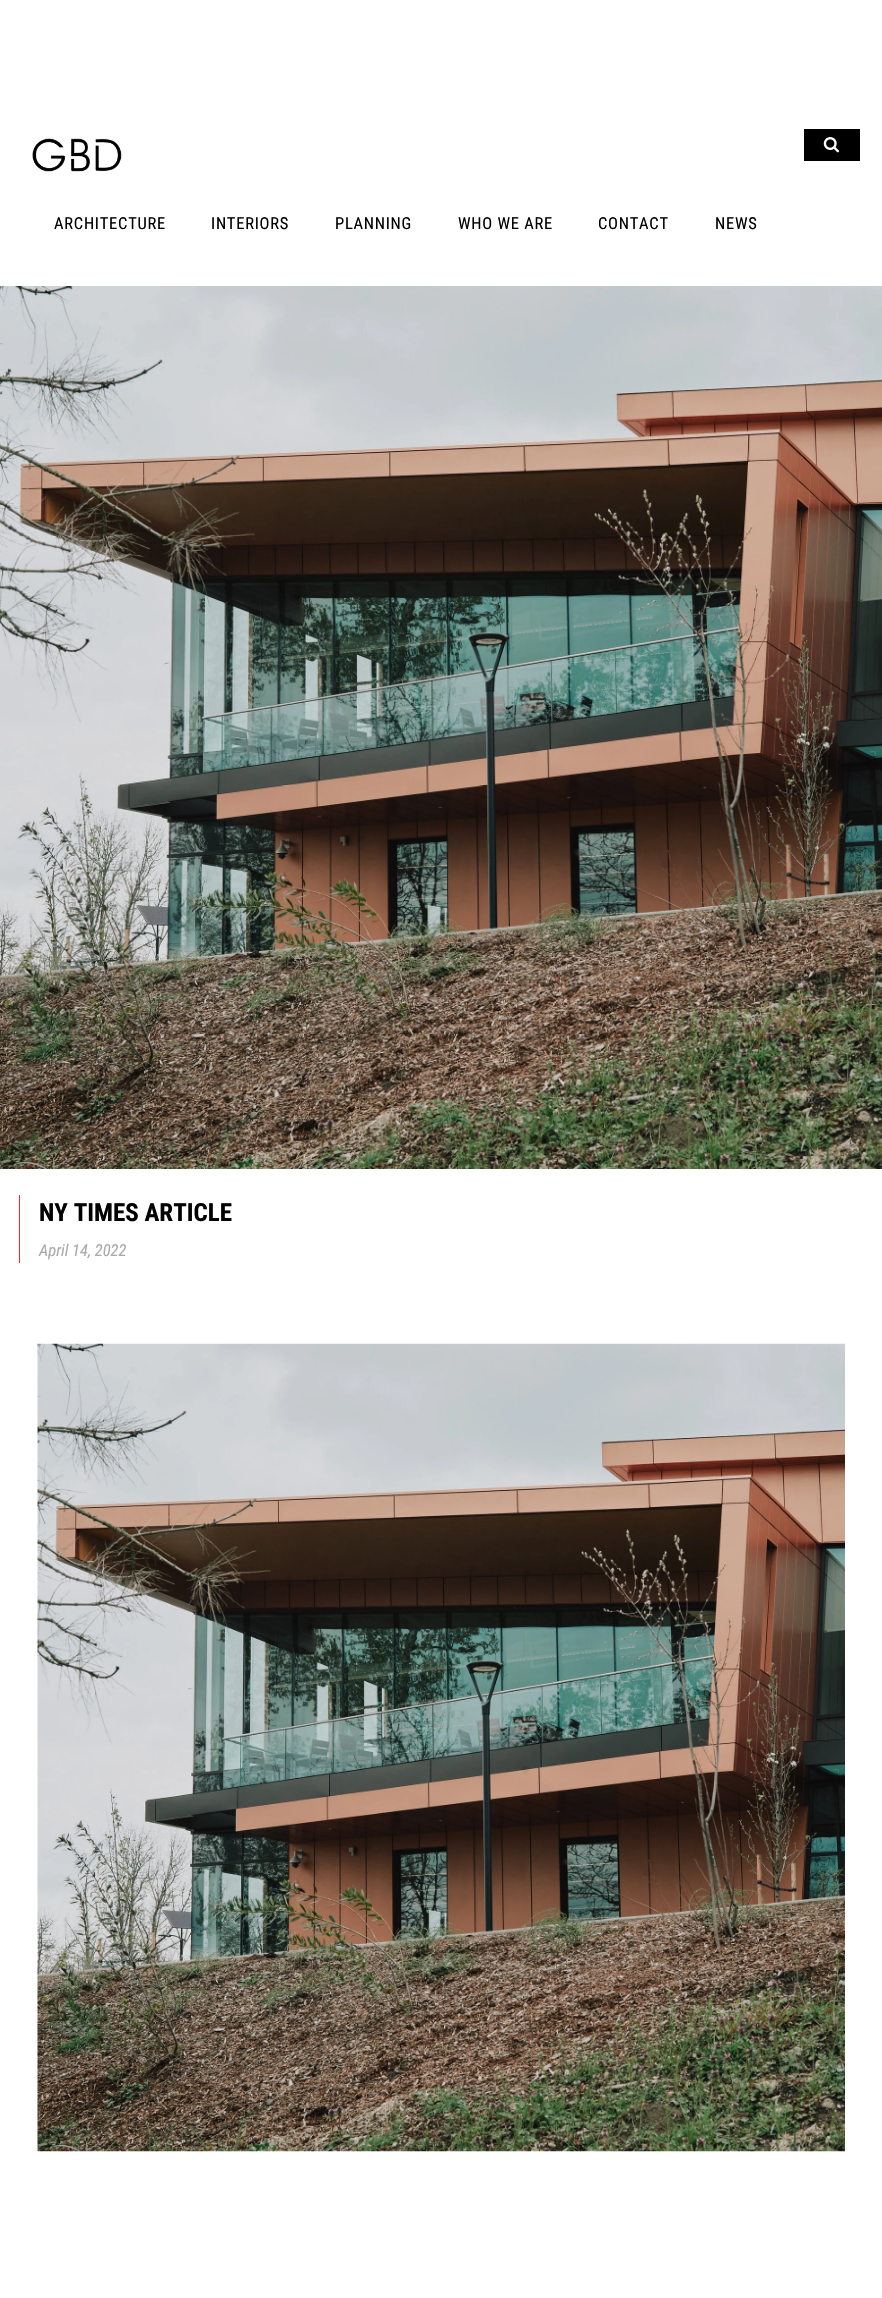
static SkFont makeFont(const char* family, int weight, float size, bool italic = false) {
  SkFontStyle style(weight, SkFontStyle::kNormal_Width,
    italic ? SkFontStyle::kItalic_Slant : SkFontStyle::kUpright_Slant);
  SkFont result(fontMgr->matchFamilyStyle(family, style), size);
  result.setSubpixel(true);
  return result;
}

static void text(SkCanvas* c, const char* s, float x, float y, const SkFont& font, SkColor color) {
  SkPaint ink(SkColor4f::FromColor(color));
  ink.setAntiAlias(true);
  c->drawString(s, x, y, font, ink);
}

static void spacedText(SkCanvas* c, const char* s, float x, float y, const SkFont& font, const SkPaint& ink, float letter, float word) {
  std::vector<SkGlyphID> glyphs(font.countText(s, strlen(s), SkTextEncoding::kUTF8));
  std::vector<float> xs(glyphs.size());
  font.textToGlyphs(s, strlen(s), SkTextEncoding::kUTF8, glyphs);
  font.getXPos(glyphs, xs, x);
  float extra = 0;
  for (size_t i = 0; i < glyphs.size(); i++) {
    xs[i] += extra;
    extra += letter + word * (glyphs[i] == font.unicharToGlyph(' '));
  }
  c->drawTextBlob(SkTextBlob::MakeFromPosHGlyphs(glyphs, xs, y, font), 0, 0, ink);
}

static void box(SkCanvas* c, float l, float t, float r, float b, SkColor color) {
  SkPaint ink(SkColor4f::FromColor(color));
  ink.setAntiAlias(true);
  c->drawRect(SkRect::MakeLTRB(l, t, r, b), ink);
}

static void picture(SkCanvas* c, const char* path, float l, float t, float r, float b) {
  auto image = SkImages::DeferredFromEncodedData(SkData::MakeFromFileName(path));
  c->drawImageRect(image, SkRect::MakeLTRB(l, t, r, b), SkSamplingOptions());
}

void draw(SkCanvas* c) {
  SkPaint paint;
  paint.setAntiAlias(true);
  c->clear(0xffffffff);
  picture(c, "img_01.png", 32, 138, 122, 172);
  box(c, 804, 129, 860, 161, 0xff000000);
  picture(c, "img_02.png", 823, 137, 840, 153);
  SkFont face1 = makeFont("Roboto Condensed", 400, 16.5f);
  paint.setColor(0xff000000);
  spacedText(c, "ARCHITECTURE", 54, 229, face1, paint, 0.75f, 0);
  spacedText(c, "INTERIORS", 211, 229, face1, paint, 0.75f, 0);
  spacedText(c, "PLANNING", 335, 229, face1, paint, 0.75f, 0);
  spacedText(c, "WHO WE ARE", 458, 229, face1, paint, 0.75f, 0);
  spacedText(c, "CONTACT", 598, 229, face1, paint, 0.75f, 0);
  spacedText(c, "NEWS", 715, 229, face1, paint, 0.75f, 0);
  picture(c, "img_03.png", 0, 286, 882, 1169);
  box(c, 19, 1195, 20, 1263, 0xffef272e);
  SkFont face2 = makeFont("Roboto Condensed", 700, 25);
  text(c, "NY TIMES ARTICLE", 39, 1221, face2, 0xff000000);
  SkFont face3 = makeFont("Roboto Condensed", 400, 16.5f, true);
  text(c, "April 14, 2022", 39, 1256, face3, 0xffaaaaaa);
  picture(c, "img_04.png", 37, 1343, 845, 2152);
}
